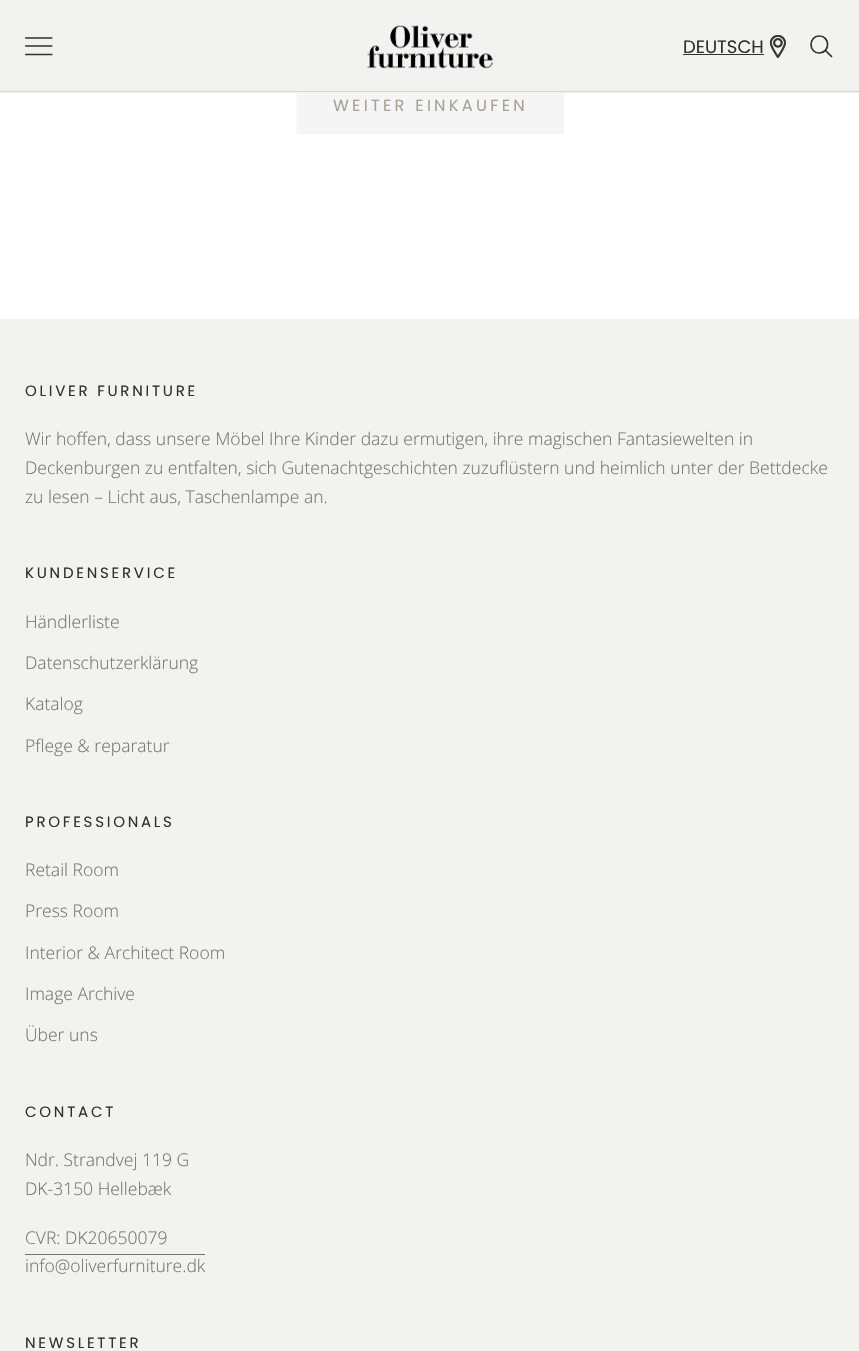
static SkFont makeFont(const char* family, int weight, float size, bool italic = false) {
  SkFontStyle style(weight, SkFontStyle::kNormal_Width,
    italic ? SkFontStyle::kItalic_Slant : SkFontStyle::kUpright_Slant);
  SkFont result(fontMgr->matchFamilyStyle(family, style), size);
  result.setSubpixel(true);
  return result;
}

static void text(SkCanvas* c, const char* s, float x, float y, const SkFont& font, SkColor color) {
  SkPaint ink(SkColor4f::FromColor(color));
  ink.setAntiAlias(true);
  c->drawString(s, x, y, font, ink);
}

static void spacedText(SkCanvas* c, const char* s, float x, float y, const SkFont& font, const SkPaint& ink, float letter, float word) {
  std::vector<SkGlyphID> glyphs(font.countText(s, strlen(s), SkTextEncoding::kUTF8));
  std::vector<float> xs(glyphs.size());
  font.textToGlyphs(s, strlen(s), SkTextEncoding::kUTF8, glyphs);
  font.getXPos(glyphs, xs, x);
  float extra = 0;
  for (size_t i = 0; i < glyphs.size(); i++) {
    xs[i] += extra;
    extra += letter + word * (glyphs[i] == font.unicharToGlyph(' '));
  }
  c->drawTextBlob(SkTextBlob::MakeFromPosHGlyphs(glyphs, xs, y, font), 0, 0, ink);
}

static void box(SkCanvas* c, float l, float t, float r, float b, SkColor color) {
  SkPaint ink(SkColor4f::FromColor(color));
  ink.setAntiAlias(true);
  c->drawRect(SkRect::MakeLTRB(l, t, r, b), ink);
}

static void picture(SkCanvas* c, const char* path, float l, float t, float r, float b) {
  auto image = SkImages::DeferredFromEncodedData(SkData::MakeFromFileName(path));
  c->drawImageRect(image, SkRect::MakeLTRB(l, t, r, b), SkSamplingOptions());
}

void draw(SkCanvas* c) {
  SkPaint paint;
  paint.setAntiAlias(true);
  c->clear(0xffffffff);
  box(c, 298, 93, 563, 133, 0xfff5f5f5);
  paint.setStyle(SkPaint::kStroke_Style);
  paint.setStrokeWidth(1);
  paint.setColor(0xfff5f5f5);
  c->drawRect(SkRect::MakeLTRB(296.5f, 79.5f, 563.5f, 133.5f), paint);
  box(c, 0, 0, 859, 93, 0xfff2f2ef);
  box(c, 0, 91, 859, 92, 0xffd5d5d2);
  paint.setStrokeWidth(1.7f);
  paint.setStrokeCap(SkPaint::kSquare_Cap);
  paint.setColor(0xff303030);
  c->drawPath(SkPathBuilder().moveTo(26, 54.5f).lineTo(51.5f, 54.5f).moveTo(26, 46).lineTo(51.5f, 46).moveTo(26, 38).lineTo(51.5f, 38).detach(), paint);
  picture(c, "img_01.png", 367, 25, 493, 69);
  SkFont face1 = makeFont("Poppins", 400, 18);
  text(c, "DEUTSCH", 683, 53, face1, 0xff303030);
  box(c, 683, 54, 764, 55, 0xff303030);
  picture(c, "img_02.png", 769, 35, 786, 58);
  paint.setStrokeCap(SkPaint::kButt_Cap);
  c->drawPath(SkPathBuilder().moveTo(819.5f, 36).cubicTo(808, 36, 808.5f, 53.5f, 819.5f, 53).cubicTo(830.5f, 52.5f, 830, 36, 819.5f, 36).close().detach(), paint);
  paint.setStrokeCap(SkPaint::kRound_Cap);
  c->drawPath(SkPathBuilder().moveTo(825.5f, 50.5f).lineTo(831.5f, 56.5f).detach(), paint);
  SkFont face2 = makeFont("Poppins", 400, 16.25f);
  paint.setStyle(SkPaint::kFill_Style);
  paint.setColor(0xffa9a291);
  spacedText(c, "WEITER EINKAUFEN", 333, 111, face2, paint, 3.25f, 0);
  box(c, 0, 319, 859, 1351, 0xfff2f2ef);
  SkFont face3 = makeFont("Poppins", 400, 15);
  paint.setColor(0xff303030);
  spacedText(c, "OLIVER FURNITURE", 25, 396, face3, paint, 2.75f, 0);
  SkFont face4 = makeFont("Open Sans", 300, 17.5f);
  text(c, "Wir hoffen, dass unsere Möbel Ihre Kinder dazu ermutigen, ihre magischen Fantasiewelten in", 25, 445, face4, 0xff747473);
  text(c, "Deckenburgen zu entfalten, sich Gutenachtgeschichten zuzuflüstern und heimlich unter der Bettdecke", 25, 474, face4, 0xff747473);
  text(c, "zu lesen – Licht aus, Taschenlampe an.", 25, 503, face4, 0xff747473);
  spacedText(c, "KUNDENSERVICE", 25, 578, face3, paint, 2.75f, 0);
  text(c, "Händlerliste", 25, 628, face4, 0xff747473);
  text(c, "Datenschutzerklärung", 25, 669, face4, 0xff747473);
  text(c, "Katalog", 25, 710, face4, 0xff747473);
  text(c, "Pflege & reparatur", 25, 752, face4, 0xff747473);
  spacedText(c, "PROFESSIONALS", 25, 827, face3, paint, 2.75f, 0);
  text(c, "Retail Room", 25, 876, face4, 0xff747473);
  text(c, "Press Room", 25, 917, face4, 0xff747473);
  text(c, "Interior & Architect Room", 25, 959, face4, 0xff747473);
  text(c, "Image Archive", 25, 1000, face4, 0xff747473);
  text(c, "Über uns", 25, 1041, face4, 0xff747473);
  spacedText(c, "CONTACT", 25, 1117, face3, paint, 2.75f, 0);
  text(c, "Ndr. Strandvej 119 G", 25, 1166, face4, 0xff747473);
  text(c, "DK-3150 Hellebæk", 25, 1195, face4, 0xff747473);
  text(c, "CVR: DK20650079", 25, 1244, face4, 0xff747473);
  text(c, "info@oliverfurniture.dk", 25, 1272, face4, 0xff747473);
  box(c, 25, 1254, 205, 1255, 0xff747473);
  spacedText(c, "NEWSLETTER", 25, 1348, face3, paint, 2.75f, 0);
}
